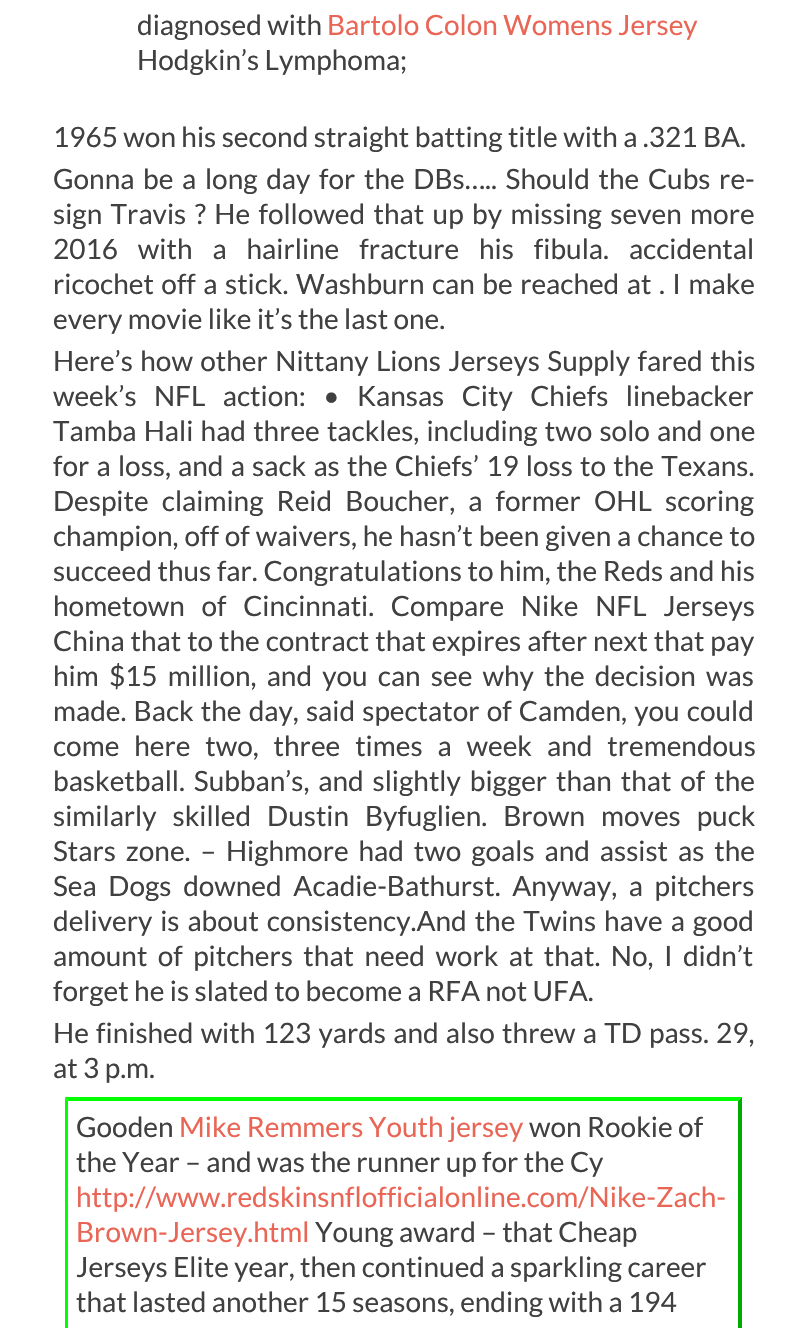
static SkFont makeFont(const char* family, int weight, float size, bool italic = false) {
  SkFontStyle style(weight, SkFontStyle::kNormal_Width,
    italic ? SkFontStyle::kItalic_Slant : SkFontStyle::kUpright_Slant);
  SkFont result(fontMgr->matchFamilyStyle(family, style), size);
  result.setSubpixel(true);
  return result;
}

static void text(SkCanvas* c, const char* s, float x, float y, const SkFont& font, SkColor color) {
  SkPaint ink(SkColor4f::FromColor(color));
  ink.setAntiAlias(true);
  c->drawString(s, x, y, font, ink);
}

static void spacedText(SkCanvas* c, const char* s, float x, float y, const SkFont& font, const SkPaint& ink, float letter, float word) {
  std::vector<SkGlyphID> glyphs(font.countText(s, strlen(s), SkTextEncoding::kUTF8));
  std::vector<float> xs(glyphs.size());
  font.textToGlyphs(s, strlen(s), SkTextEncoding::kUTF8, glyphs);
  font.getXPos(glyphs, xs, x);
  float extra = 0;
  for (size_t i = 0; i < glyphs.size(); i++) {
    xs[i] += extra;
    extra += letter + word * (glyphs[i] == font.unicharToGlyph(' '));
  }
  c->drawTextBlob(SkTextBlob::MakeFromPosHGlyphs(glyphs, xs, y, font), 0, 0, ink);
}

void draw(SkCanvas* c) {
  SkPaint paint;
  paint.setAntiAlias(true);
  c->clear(0xffffffff);
  SkFont face1 = makeFont("Lato", 400, 28);
  text(c, "diagnosed with", 137, 35, face1, 0xff404040);
  text(c, "Bartolo Colon Womens Jersey", 327, 35, face1, 0xffe96656);
  text(c, "Hodgkin’s Lymphoma;", 137, 70, face1, 0xff404040);
  text(c, "1965 won his second straight batting title with a .321 BA.", 53, 147, face1, 0xff404040);
  paint.setColor(0xff404040);
  spacedText(c, "Gonna be a long day for the DBs….. Should the Cubs re-", 53, 189, face1, paint, 0, 3.25f);
  spacedText(c, "sign Travis ? He followed that up by missing seven more", 53, 224, face1, paint, 0, 3);
  spacedText(c, "2016 with a hairline fracture his fibula. accidental", 53, 259, face1, paint, 0, 14.5f);
  spacedText(c, "ricochet off a stick. Washburn can be reached at . I make", 53, 294, face1, paint, 0, 2.1f);
  text(c, "every movie like it’s the last one.", 53, 329, face1, 0xff404040);
  spacedText(c, "Here’s how other Nittany Lions Jerseys Supply fared this", 53, 371, face1, paint, 0, 2);
  spacedText(c, "week’s NFL action: • Kansas City Chiefs linebacker", 53, 406, face1, paint, 0, 12);
  spacedText(c, "Tamba Hali had three tackles, including two solo and one", 53, 441, face1, paint, 0, 1.75f);
  spacedText(c, "for a loss, and a sack as the Chiefs’ 19 loss to the Texans.", 53, 476, face1, paint, 0, 1.8f);
  spacedText(c, "Despite claiming Reid Boucher, a former OHL scoring", 53, 511, face1, paint, 0, 7.75f);
  spacedText(c, "champion, off of waivers, he hasn’t been given a chance to", 53, 546, face1, paint, 0, 0.5f);
  spacedText(c, "succeed thus far. Congratulations to him, the Reds and his", 53, 581, face1, paint, 0, 0.25f);
  spacedText(c, "hometown of Cincinnati. Compare Nike NFL Jerseys", 53, 616, face1, paint, 0, 11.25f);
  spacedText(c, "China that to the contract that expires after next that pay", 53, 651, face1, paint, 0, 0.5f);
  spacedText(c, "him $15 million, and you can see why the decision was", 53, 686, face1, paint, 0, 4.75f);
  spacedText(c, "made. Back the day, said spectator of Camden, you could", 53, 721, face1, paint, 0, 1.75f);
  spacedText(c, "come here two, three times a week and tremendous", 53, 756, face1, paint, 0, 9.5f);
  spacedText(c, "basketball. Subban’s, and slightly bigger than that of the", 53, 791, face1, paint, 0, 3.5f);
  spacedText(c, "similarly skilled Dustin Byfuglien. Brown moves puck", 53, 826, face1, paint, 0, 10.5f);
  spacedText(c, "Stars zone. – Highmore had two goals and assist as the", 53, 861, face1, paint, 0, 4.5f);
  spacedText(c, "Sea Dogs downed Acadie-Bathurst. Anyway, a pitchers", 53, 896, face1, paint, 0, 6.25f);
  spacedText(c, "delivery is about consistency.And the Twins have a good", 53, 931, face1, paint, 0, 2.5f);
  spacedText(c, "amount of pitchers that need work at that. No, I didn’t", 53, 966, face1, paint, 0, 5);
  text(c, "forget he is slated to become a RFA not UFA.", 53, 1001, face1, 0xff404040);
  spacedText(c, "He finished with 123 yards and also threw a TD pass. 29,", 53, 1043, face1, paint, 0, 1.8f);
  text(c, "at 3 p.m.", 53, 1078, face1, 0xff404040);
  paint.setColor(0xff00ff00);
  c->drawPath(SkPathBuilder().moveTo(65, 1097).lineTo(742, 1097).lineTo(738, 1101).lineTo(68, 1101).close().detach(), paint);
  paint.setColor(0xff00aa00);
  c->drawPath(SkPathBuilder().moveTo(742, 1097).lineTo(742, 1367).lineTo(738, 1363).lineTo(738, 1101).close().detach(), paint);
  paint.setColor(0xff00ff00);
  c->drawPath(SkPathBuilder().moveTo(65, 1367).lineTo(65, 1097).lineTo(68, 1101).lineTo(68, 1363).close().detach(), paint);
  text(c, "Gooden", 76, 1137, face1, 0xff404040);
  text(c, "Mike Remmers Youth jersey", 179, 1137, face1, 0xffe96656);
  text(c, "won Rookie of", 529, 1137, face1, 0xff404040);
  text(c, "the Year – and was the runner up for the Cy", 76, 1172, face1, 0xff404040);
  text(c, "http://www.redskinsnflofficialonline.com/Nike-Zach-", 76, 1207, face1, 0xffe96656);
  text(c, "Brown-Jersey.html", 76, 1242, face1, 0xffe96656);
  text(c, "Young award – that Cheap", 315, 1242, face1, 0xff404040);
  text(c, "Jerseys Elite year, then continued a sparkling career", 76, 1277, face1, 0xff404040);
  text(c, "that lasted another 15 seasons, ending with a 194", 76, 1312, face1, 0xff404040);
}
